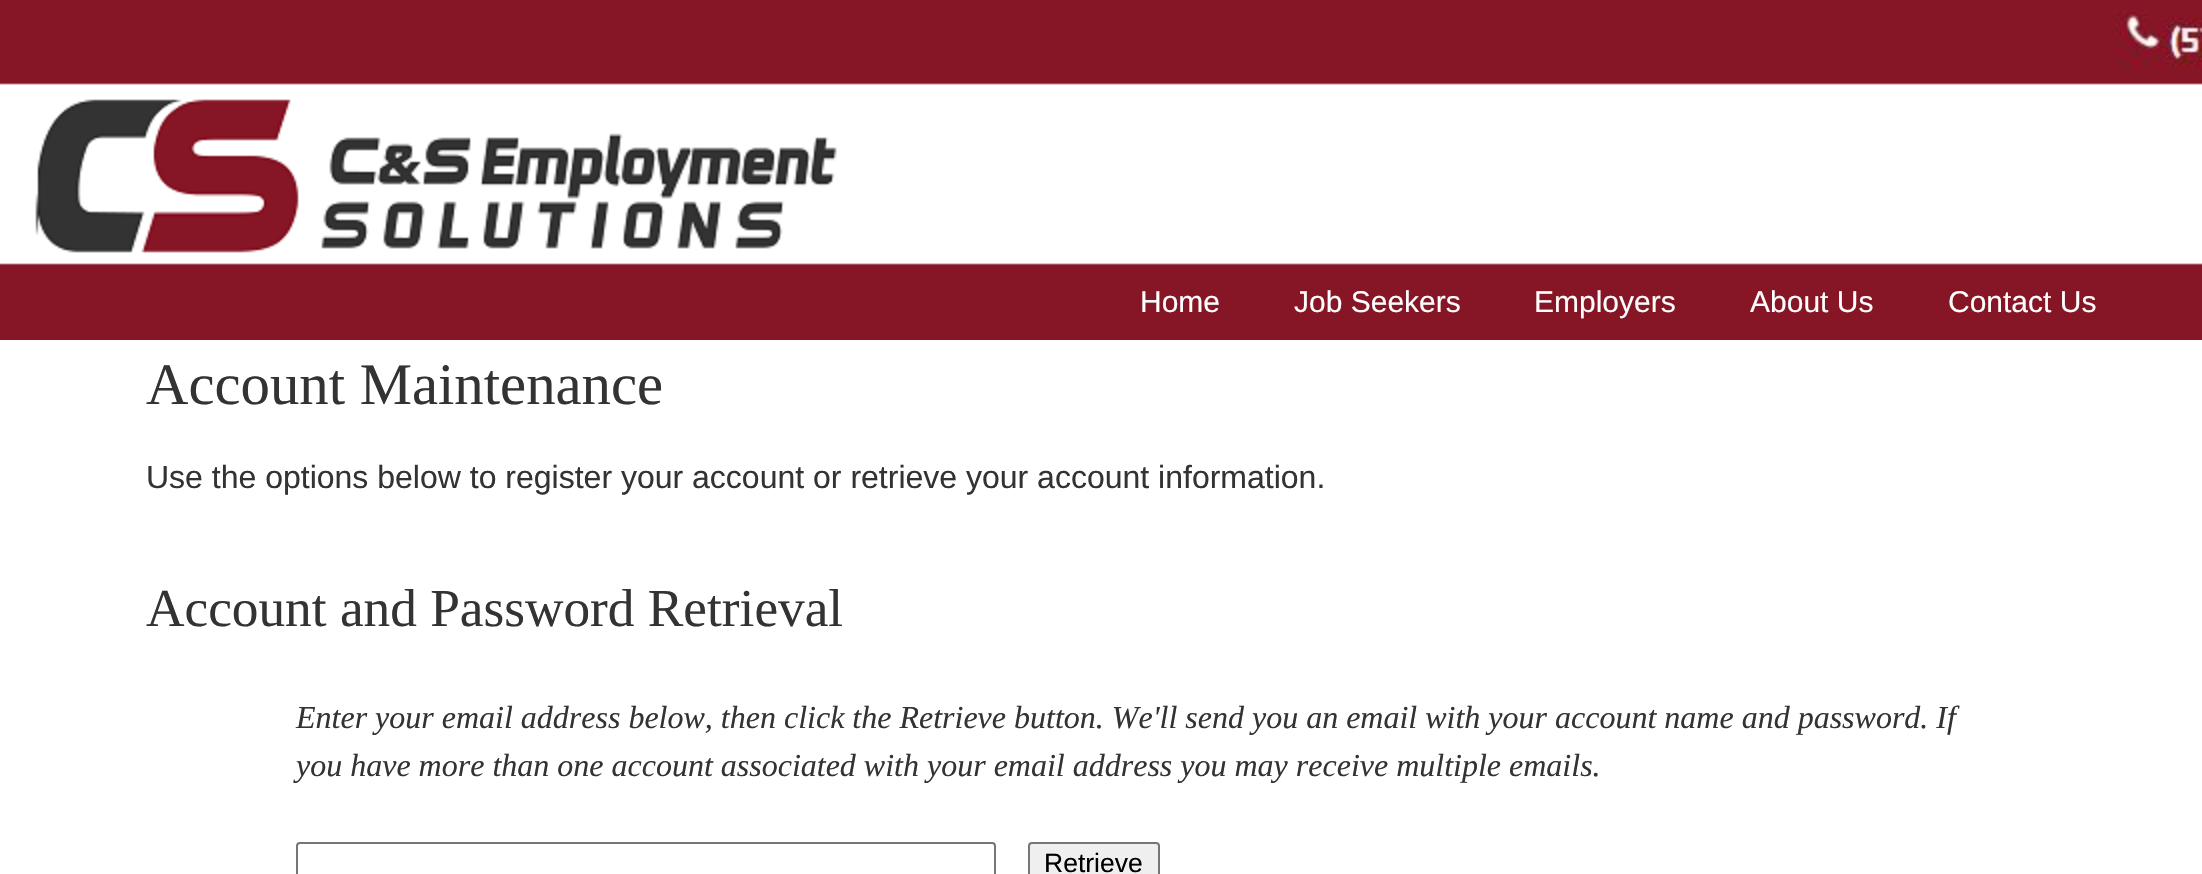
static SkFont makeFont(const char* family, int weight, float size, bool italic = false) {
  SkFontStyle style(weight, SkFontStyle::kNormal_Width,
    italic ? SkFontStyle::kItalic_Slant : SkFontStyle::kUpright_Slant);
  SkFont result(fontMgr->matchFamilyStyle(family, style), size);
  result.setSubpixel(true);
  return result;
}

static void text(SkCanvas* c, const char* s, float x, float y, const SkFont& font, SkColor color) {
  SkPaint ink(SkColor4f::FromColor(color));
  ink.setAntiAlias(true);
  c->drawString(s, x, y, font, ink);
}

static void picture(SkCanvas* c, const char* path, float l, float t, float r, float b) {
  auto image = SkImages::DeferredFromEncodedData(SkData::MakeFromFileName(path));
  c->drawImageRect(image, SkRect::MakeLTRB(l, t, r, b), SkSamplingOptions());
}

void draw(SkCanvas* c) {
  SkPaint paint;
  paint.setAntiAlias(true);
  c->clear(0xffffffff);
  picture(c, "img_01.png", 0, 0, 2202, 340);
  SkFont face1 = makeFont("Liberation Sans", 400, 30);
  text(c, "Home", 1140, 312, face1, 0xfffefefe);
  text(c, "Job Seekers", 1294, 312, face1, 0xfffefefe);
  text(c, "Employers", 1534, 312, face1, 0xfffefefe);
  text(c, "About Us", 1750, 312, face1, 0xfffefefe);
  text(c, "Contact Us", 1948, 312, face1, 0xfffefefe);
  SkFont face2 = makeFont("Liberation Serif", 400, 58.75f);
  text(c, "Account Maintenance", 146, 404, face2, 0xff333333);
  SkFont face3 = makeFont("Liberation Sans", 400, 32);
  text(c, "Use the options below to register your account or retrieve your account information.", 146, 488, face3, 0xff333333);
  SkFont face4 = makeFont("Liberation Serif", 400, 53.3f);
  text(c, "Account and Password Retrieval", 146, 626, face4, 0xff333333);
  SkFont face5 = makeFont("Liberation Serif", 400, 32, true);
  text(c, "Enter your email address below, then click the Retrieve button. We'll send you an email with your account name and password. If", 296, 728, face5, 0xff333333);
  text(c, "you have more than one account associated with your email address you may receive multiple emails.", 296, 776, face5, 0xff333333);
  paint.setStyle(SkPaint::kStroke_Style);
  paint.setStrokeWidth(2);
  paint.setColor(0xff767676);
  c->drawRoundRect(SkRect::MakeLTRB(297, 843, 995, 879), 3, 3, paint);
  paint.setStyle(SkPaint::kFill_Style);
  paint.setColor(0xffefefef);
  c->drawRoundRect(SkRect::MakeLTRB(1029, 843, 1159, 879), 3, 3, paint);
  paint.setStyle(SkPaint::kStroke_Style);
  paint.setColor(0xff767676);
  c->drawRoundRect(SkRect::MakeLTRB(1029, 843, 1159, 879), 3, 3, paint);
  SkFont face6 = makeFont("Liberation Sans", 400, 26.5f);
  text(c, "Retrieve", 1044, 872, face6, 0xff000000);
}
